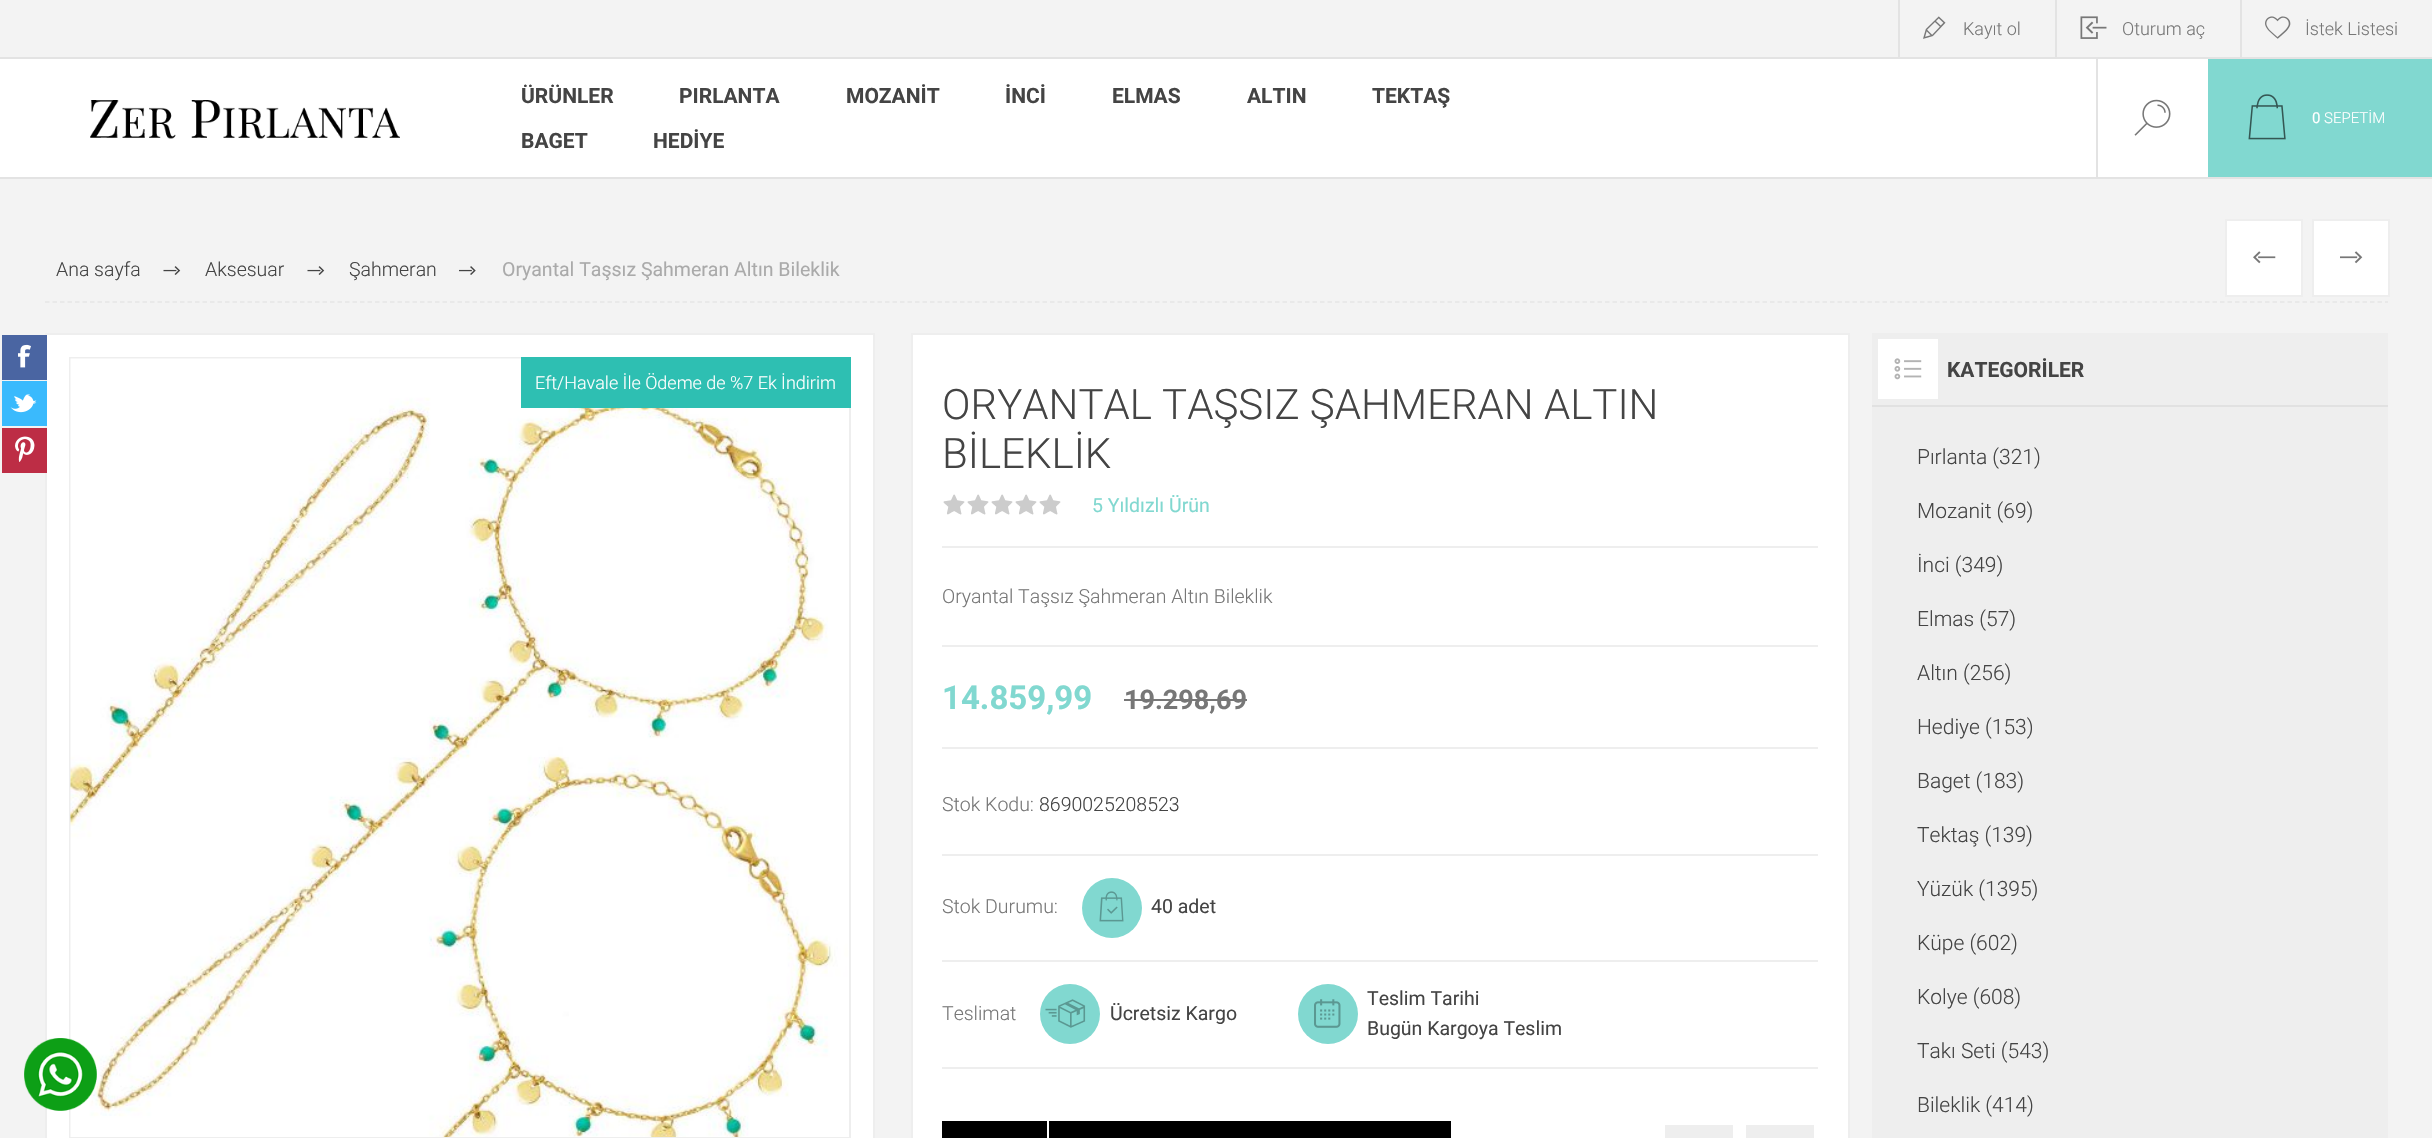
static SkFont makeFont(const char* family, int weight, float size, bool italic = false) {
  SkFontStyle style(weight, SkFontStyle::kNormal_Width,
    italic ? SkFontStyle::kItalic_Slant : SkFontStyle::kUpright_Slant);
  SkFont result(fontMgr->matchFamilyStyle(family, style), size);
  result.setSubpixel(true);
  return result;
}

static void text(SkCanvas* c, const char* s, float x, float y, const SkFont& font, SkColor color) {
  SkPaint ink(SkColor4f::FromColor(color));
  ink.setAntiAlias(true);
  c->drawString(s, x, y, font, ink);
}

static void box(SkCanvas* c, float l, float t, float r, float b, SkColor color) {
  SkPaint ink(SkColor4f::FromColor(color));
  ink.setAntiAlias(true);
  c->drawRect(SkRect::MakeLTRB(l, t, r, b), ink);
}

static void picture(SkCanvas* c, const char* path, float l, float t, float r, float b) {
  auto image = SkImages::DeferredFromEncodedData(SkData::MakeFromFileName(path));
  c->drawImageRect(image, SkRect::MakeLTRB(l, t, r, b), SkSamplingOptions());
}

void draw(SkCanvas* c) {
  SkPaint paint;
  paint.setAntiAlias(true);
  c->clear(0xfff3f3f3);
  box(c, 0, 57, 2432, 59, 0xffe3e3e3);
  box(c, 1898, 0, 1900, 57, 0xffe3e3e3);
  picture(c, "img_01.png", 1923, 16, 1946, 39);
  SkFont face1 = makeFont("Roboto", 300, 18);
  text(c, "Kayıt ol", 1963, 35, face1, 0xff777777);
  box(c, 2055, 0, 2057, 57, 0xffe3e3e3);
  picture(c, "img_02.png", 2080, 16, 2107, 39);
  text(c, "Oturum aç", 2122, 35, face1, 0xff777777);
  box(c, 2240, 0, 2242, 57, 0xffe3e3e3);
  picture(c, "img_03.png", 2265, 16, 2291, 39);
  text(c, "İstek Listesi", 2305, 35, face1, 0xff777777);
  box(c, 0, 59, 2096, 177, 0xffffffff);
  box(c, 0, 177, 2432, 179, 0xffe3e3e3);
  picture(c, "img_04.png", 90, 100, 400, 139);
  SkFont face2 = makeFont("Roboto", 700, 21);
  text(c, "ÜRÜNLER", 521, 103, face2, 0xff444444);
  text(c, "PIRLANTA", 679, 103, face2, 0xff444444);
  text(c, "MOZANİT", 846, 103, face2, 0xff444444);
  text(c, "İNCİ", 1005, 103, face2, 0xff444444);
  text(c, "ELMAS", 1112, 103, face2, 0xff444444);
  text(c, "ALTIN", 1247, 103, face2, 0xff444444);
  text(c, "TEKTAŞ", 1372, 103, face2, 0xff444444);
  text(c, "BAGET", 521, 148, face2, 0xff444444);
  text(c, "HEDİYE", 653, 148, face2, 0xff444444);
  box(c, 2098, 59, 2208, 177, 0xffffffff);
  box(c, 2096, 59, 2098, 177, 0xffe3e3e3);
  picture(c, "img_05.png", 2134, 99, 2171, 136);
  box(c, 2208, 59, 2432, 177, 0xff81d8d0);
  picture(c, "img_06.png", 2248, 94, 2286, 140);
  SkFont face3 = makeFont("Roboto", 400, 15);
  text(c, "0", 2312, 123, face3, 0xffffffff);
  SkFont face4 = makeFont("Roboto", 300, 15);
  text(c, "SEPETİM", 2324, 123, face4, 0xffffffff);
  paint.setStyle(SkPaint::kStroke_Style);
  paint.setStrokeWidth(1.5f);
  paint.setColor(0xffe6e6e6);
  paint.setPathEffect(SkDashPathEffect::Make({{4.5f, 3}}, 0));
  c->drawPath(SkPathBuilder().moveTo(45, 302).lineTo(2388, 302).detach(), paint);
  paint.setPathEffect(nullptr);
  SkFont face5 = makeFont("Roboto", 300, 19.5f);
  text(c, "Ana sayfa", 56, 276, face5, 0xff444444);
  picture(c, "img_07.png", 163, 266, 181, 275);
  text(c, "Aksesuar", 205, 276, face5, 0xff444444);
  picture(c, "img_07.png", 307, 266, 325, 275);
  text(c, "Şahmeran", 349, 276, face5, 0xff444444);
  picture(c, "img_08.png", 459, 266, 476, 275);
  SkFont face6 = makeFont("Roboto", 400, 19.5f);
  text(c, "Oryantal Taşsız Şahmeran Altın Bileklik", 502, 276, face6, 0xffaaaaaa);
  paint.setStyle(SkPaint::kFill_Style);
  paint.setColor(0xffffffff);
  c->drawRect(SkRect::MakeLTRB(2226, 220, 2302, 296), paint);
  paint.setStyle(SkPaint::kStroke_Style);
  paint.setStrokeWidth(2);
  paint.setColor(0xffeeeeee);
  c->drawRect(SkRect::MakeLTRB(2226, 220, 2302, 296), paint);
  picture(c, "img_09.png", 2253, 251, 2276, 264);
  paint.setStyle(SkPaint::kFill_Style);
  paint.setColor(0xffffffff);
  c->drawRect(SkRect::MakeLTRB(2313, 220, 2389, 296), paint);
  paint.setStyle(SkPaint::kStroke_Style);
  paint.setColor(0xffeeeeee);
  c->drawRect(SkRect::MakeLTRB(2313, 220, 2389, 296), paint);
  picture(c, "img_10.png", 2340, 251, 2363, 264);
  paint.setStyle(SkPaint::kFill_Style);
  paint.setColor(0xffffffff);
  c->drawRect(SkRect::MakeLTRB(46, 334, 874, 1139), paint);
  paint.setStyle(SkPaint::kStroke_Style);
  paint.setColor(0xffeeeeee);
  c->drawRect(SkRect::MakeLTRB(46, 334, 874, 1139), paint);
  box(c, 2, 335, 47, 380, 0xff4a65a2);
  picture(c, "img_11.png", 18, 344, 31, 368);
  box(c, 2, 381, 47, 426, 0xff3abafd);
  picture(c, "img_12.png", 10, 394, 37, 413);
  box(c, 2, 428, 47, 473, 0xffbd2d45);
  picture(c, "img_13.png", 15, 436, 35, 462);
  c->drawRect(SkRect::MakeLTRB(70, 358, 850, 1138), paint);
  picture(c, "img_14.png", 70, 358, 849, 1137);
  box(c, 521, 357, 851, 408, 0xff2ebfb2);
  text(c, "Eft/Havale İle Ödeme de %7 Ek İndirim", 535, 389, face1, 0xffffffff);
  paint.setStyle(SkPaint::kFill_Style);
  paint.setColor(0xffffffff);
  c->drawRect(SkRect::MakeLTRB(912, 334, 1849, 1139), paint);
  paint.setStyle(SkPaint::kStroke_Style);
  paint.setColor(0xffeeeeee);
  c->drawRect(SkRect::MakeLTRB(912, 334, 1849, 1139), paint);
  SkFont face7 = makeFont("Roboto", 300, 42);
  text(c, "ORYANTAL TAŞSIZ ŞAHMERAN ALTIN", 942, 419, face7, 0xff444444);
  text(c, "BİLEKLİK", 942, 468, face7, 0xff444444);
  box(c, 942, 546, 1818, 548, 0xffeeeeee);
  picture(c, "img_15.png", 943, 494, 1061, 515);
  text(c, "5 Yıldızlı Ürün", 1092, 512, face6, 0xff81d8d0);
  box(c, 942, 645, 1818, 647, 0xffeeeeee);
  text(c, "Oryantal Taşsız Şahmeran Altın Bileklik", 942, 603, face5, 0xff777777);
  box(c, 942, 747, 1818, 749, 0xffeeeeee);
  SkFont face8 = makeFont("Roboto", 700, 33);
  text(c, "14.859,99", 942, 709, face8, 0xff81d8d0);
  SkFont face9 = makeFont("Roboto", 700, 27);
  text(c, "19.298,69", 1124, 709, face9, 0xff777777);
  box(c, 1124, 699, 1247, 701, 0xff777777);
  box(c, 942, 854, 1818, 856, 0xffeeeeee);
  text(c, "Stok Kodu:", 942, 811, face5, 0xff777777);
  text(c, "8690025208523", 1039, 811, face5, 0xff444444);
  box(c, 942, 960, 1818, 962, 0xffeeeeee);
  text(c, "Stok Durumu:", 942, 913, face5, 0xff777777);
  paint.setStyle(SkPaint::kFill_Style);
  paint.setColor(0xff81d8d0);
  c->drawCircle(1112, 908, 30, paint);
  picture(c, "img_16.png", 1099, 891, 1124, 922);
  text(c, "40 adet", 1151, 913, face6, 0xff444444);
  box(c, 942, 1067, 1818, 1069, 0xffeeeeee);
  text(c, "Teslimat", 942, 1020, face5, 0xff777777);
  c->drawCircle(1070, 1014, 30, paint);
  picture(c, "img_17.png", 1045, 999, 1086, 1028);
  text(c, "Ücretsiz Kargo", 1110, 1020, face6, 0xff444444);
  c->drawCircle(1328, 1014, 30, paint);
  picture(c, "img_18.png", 1314, 999, 1341, 1028);
  text(c, "Teslim Tarihi", 1367, 1005, face6, 0xff444444);
  text(c, "Bugün Kargoya Teslim", 1367, 1035, face6, 0xff444444);
  box(c, 942, 1121, 1047, 1138, 0xff000000);
  box(c, 1049, 1121, 1451, 1138, 0xff000000);
  box(c, 1665, 1125, 1733, 1138, 0xffeeeeee);
  box(c, 1746, 1125, 1814, 1138, 0xffeeeeee);
  box(c, 1872, 333, 2388, 1138, 0xffeeeeee);
  box(c, 1872, 405, 2388, 407, 0xffe1e1e1);
  box(c, 1878, 339, 1938, 399, 0xffffffff);
  picture(c, "img_19.png", 1894, 358, 1922, 380);
  text(c, "KATEGORİLER", 1947, 377, face2, 0xff444444);
  SkFont face10 = makeFont("Roboto", 300, 21);
  text(c, "Pırlanta (321)", 1917, 464, face10, 0xff444444);
  text(c, "Mozanit (69)", 1917, 518, face10, 0xff444444);
  text(c, "İnci (349)", 1917, 572, face10, 0xff444444);
  text(c, "Elmas (57)", 1917, 626, face10, 0xff444444);
  text(c, "Altın (256)", 1917, 680, face10, 0xff444444);
  text(c, "Hediye (153)", 1917, 734, face10, 0xff444444);
  text(c, "Baget (183)", 1917, 788, face10, 0xff444444);
  text(c, "Tektaş (139)", 1917, 842, face10, 0xff444444);
  text(c, "Yüzük (1395)", 1917, 896, face10, 0xff444444);
  text(c, "Küpe (602)", 1917, 950, face10, 0xff444444);
  text(c, "Kolye (608)", 1917, 1004, face10, 0xff444444);
  text(c, "Takı Seti (543)", 1917, 1058, face10, 0xff444444);
  text(c, "Bileklik (414)", 1917, 1112, face10, 0xff444444);
  picture(c, "img_20.png", 24, 1038, 97, 1111);
}
